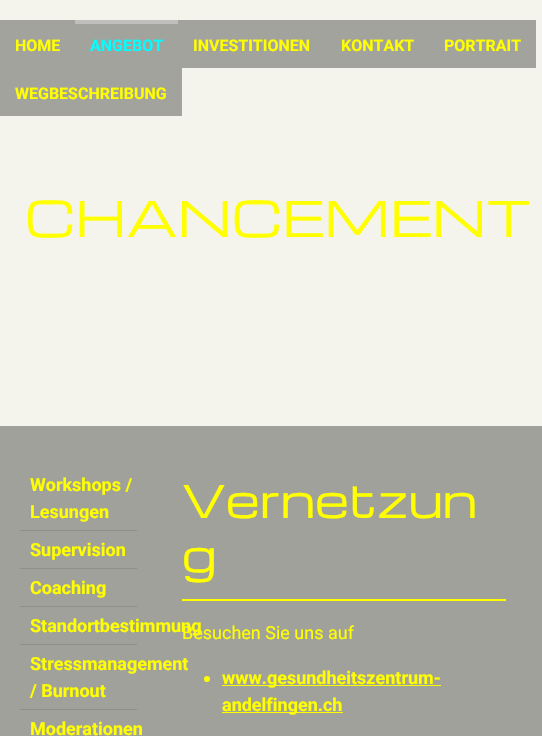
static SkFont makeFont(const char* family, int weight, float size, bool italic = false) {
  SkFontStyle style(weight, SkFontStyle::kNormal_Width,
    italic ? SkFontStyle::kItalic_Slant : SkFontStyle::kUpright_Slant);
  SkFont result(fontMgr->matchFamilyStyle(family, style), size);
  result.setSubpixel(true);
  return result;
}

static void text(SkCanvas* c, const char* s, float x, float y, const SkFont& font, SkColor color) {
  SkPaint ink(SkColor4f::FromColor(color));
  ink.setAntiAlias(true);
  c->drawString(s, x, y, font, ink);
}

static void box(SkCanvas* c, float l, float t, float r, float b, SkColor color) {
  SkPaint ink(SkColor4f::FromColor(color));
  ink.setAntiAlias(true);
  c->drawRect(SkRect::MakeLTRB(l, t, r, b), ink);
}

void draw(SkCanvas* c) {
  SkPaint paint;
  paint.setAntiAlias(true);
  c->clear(0xfff5f4ec);
  box(c, 0, 20, 75, 68, 0xffa3a39e);
  SkFont face1 = makeFont("Roboto", 700, 16);
  text(c, "HOME", 15, 51, face1, 0xffffff00);
  box(c, 75, 24, 178, 68, 0xffa3a39e);
  box(c, 75, 20, 178, 24, 0xffbfbfbb);
  text(c, "ANGEBOT", 90, 51, face1, 0xff00ffff);
  box(c, 178, 20, 536, 68, 0xffa3a39e);
  text(c, "INVESTITIONEN", 193, 51, face1, 0xffffff00);
  text(c, "KONTAKT", 341, 51, face1, 0xffffff00);
  text(c, "PORTRAIT", 444, 51, face1, 0xffffff00);
  box(c, 0, 68, 182, 116, 0xffa3a39e);
  text(c, "WEGBESCHREIBUNG", 15, 99, face1, 0xffffff00);
  SkFont face2 = makeFont("Michroma", 400, 48);
  text(c, "CHANCEMENT", 25, 237, face2, 0xffffff00);
  box(c, 0, 426, 542, 736, 0xffa1a19c);
  box(c, 20, 530, 137, 531, 0xff8f8f8b);
  SkFont face3 = makeFont("Roboto", 700, 18);
  text(c, "Workshops /", 30, 491, face3, 0xffffff00);
  text(c, "Lesungen", 30, 518, face3, 0xffffff00);
  box(c, 20, 568, 137, 569, 0xff8f8f8b);
  text(c, "Supervision", 30, 556, face3, 0xffffff00);
  box(c, 20, 606, 137, 607, 0xff8f8f8b);
  text(c, "Coaching", 30, 594, face3, 0xffffff00);
  box(c, 20, 644, 137, 645, 0xff8f8f8b);
  text(c, "Standortbestimmung", 30, 632, face3, 0xffffff00);
  box(c, 20, 709, 137, 710, 0xff8f8f8b);
  text(c, "Stressmanagement", 30, 670, face3, 0xffffff00);
  text(c, "/ Burnout", 30, 697, face3, 0xffffff00);
  text(c, "Moderationen", 30, 735, face3, 0xffffff00);
  SkFont face4 = makeFont("Michroma", 400, 44);
  text(c, "Vernetzun", 182, 518, face4, 0xffffff00);
  text(c, "g", 182, 573, face4, 0xffffff00);
  box(c, 182, 599, 506, 601, 0xffffff00);
  SkFont face5 = makeFont("Roboto", 400, 18);
  text(c, "Besuchen Sie uns auf", 182, 639, face5, 0xffffff00);
  paint.setColor(0xffffff00);
  c->drawCircle(207, 679, 3, paint);
  box(c, 222, 685, 441, 686, 0xffffff00);
  text(c, "www.gesundheitszentrum-", 222, 684, face3, 0xffffff00);
  box(c, 222, 712, 343, 713, 0xffffff00);
  text(c, "andelfingen.ch", 222, 711, face3, 0xffffff00);
}
